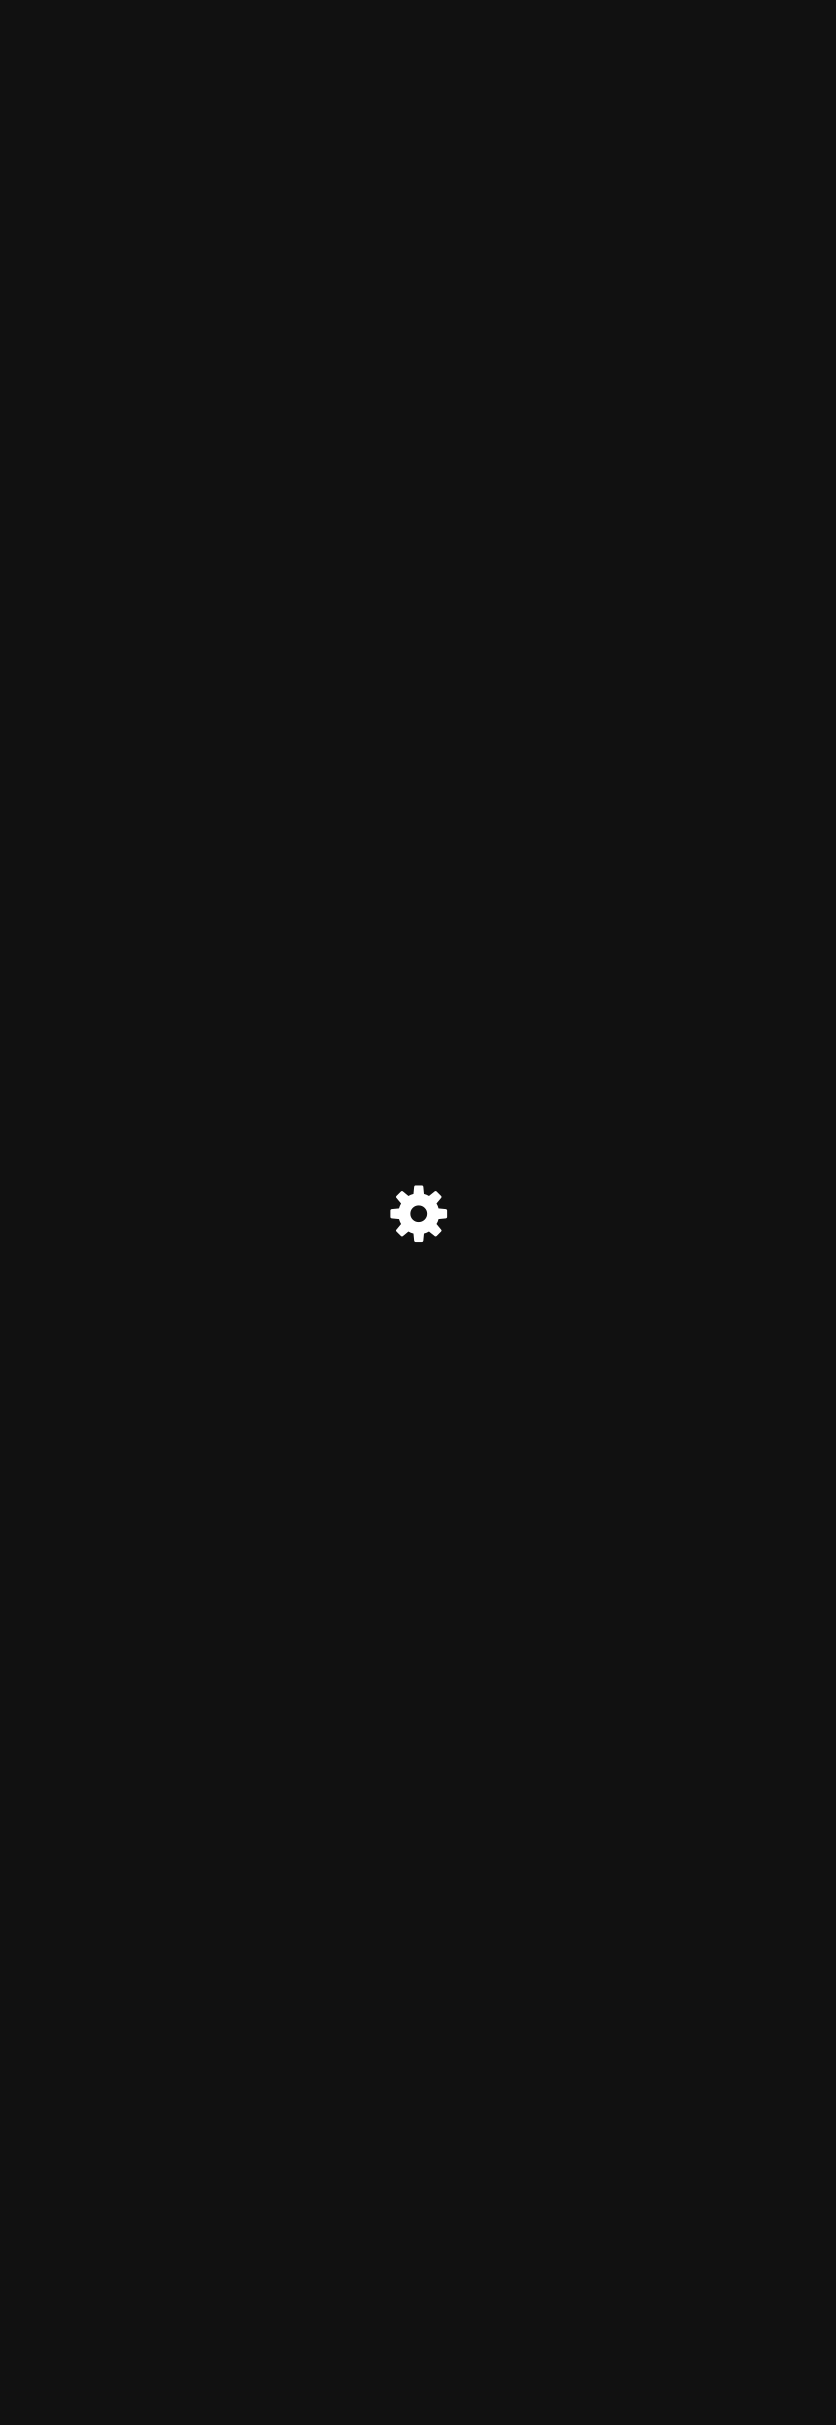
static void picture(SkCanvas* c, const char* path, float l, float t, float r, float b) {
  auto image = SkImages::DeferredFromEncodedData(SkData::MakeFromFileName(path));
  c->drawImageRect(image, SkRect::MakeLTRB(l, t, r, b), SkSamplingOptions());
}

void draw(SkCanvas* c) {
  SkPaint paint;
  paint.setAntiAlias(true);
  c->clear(0xff111111);
  picture(c, "img_01.png", 390, 1185, 448, 1243);
}
